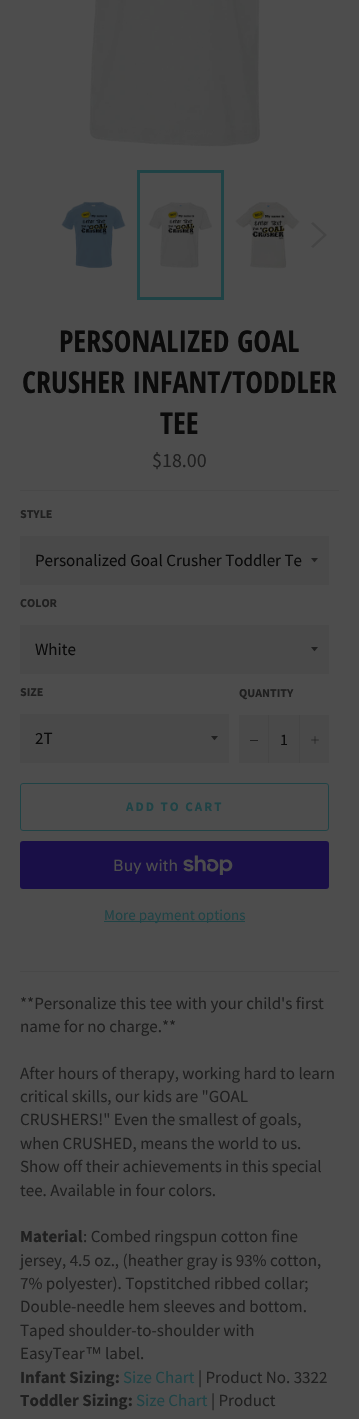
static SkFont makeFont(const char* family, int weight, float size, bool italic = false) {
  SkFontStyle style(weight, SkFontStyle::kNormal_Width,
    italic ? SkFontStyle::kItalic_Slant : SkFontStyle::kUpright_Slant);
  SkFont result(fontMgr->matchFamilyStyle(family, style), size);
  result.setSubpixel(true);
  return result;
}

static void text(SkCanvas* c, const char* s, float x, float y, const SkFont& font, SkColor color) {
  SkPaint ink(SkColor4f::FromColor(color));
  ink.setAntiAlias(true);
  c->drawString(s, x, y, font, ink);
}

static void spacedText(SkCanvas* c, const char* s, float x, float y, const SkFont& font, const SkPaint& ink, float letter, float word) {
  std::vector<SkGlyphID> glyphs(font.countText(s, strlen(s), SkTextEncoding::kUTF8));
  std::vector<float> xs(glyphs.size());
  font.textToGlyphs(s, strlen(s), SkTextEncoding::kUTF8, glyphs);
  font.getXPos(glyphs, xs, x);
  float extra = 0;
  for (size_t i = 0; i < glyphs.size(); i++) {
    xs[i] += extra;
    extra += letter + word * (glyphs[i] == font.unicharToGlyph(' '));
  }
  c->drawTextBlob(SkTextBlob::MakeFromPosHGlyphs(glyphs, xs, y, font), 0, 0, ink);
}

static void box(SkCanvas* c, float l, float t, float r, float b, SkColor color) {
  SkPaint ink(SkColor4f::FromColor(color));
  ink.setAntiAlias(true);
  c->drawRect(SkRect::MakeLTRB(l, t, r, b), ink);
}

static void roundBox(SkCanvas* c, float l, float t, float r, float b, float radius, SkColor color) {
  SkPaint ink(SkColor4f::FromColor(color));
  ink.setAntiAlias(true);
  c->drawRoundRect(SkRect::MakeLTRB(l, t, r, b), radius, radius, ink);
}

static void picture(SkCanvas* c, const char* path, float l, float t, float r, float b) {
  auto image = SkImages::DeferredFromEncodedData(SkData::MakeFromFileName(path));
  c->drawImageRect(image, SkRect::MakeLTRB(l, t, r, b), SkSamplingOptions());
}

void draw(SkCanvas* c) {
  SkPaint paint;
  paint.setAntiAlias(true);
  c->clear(0xff4d4d4d);
  picture(c, "img_01.png", 89, 0, 260, 147);
  picture(c, "img_02.png", 61, 201, 126, 268);
  picture(c, "img_03.png", 148, 202, 212, 268);
  paint.setStyle(SkPaint::kStroke_Style);
  paint.setStrokeWidth(3);
  paint.setColor(0xff1f4245);
  c->drawRect(SkRect::MakeLTRB(138.5f, 171.5f, 222.5f, 298.5f), paint);
  picture(c, "img_04.png", 235, 202, 300, 269);
  paint.setStyle(SkPaint::kFill_Style);
  paint.setColor(0xff434343);
  c->drawPath(SkPathBuilder().moveTo(311, 223.5f).lineTo(313, 222).lineTo(327, 235).lineTo(313, 248).lineTo(311, 246.5f).lineTo(323.5f, 235).close().detach(), paint);
  SkFont face1 = makeFont("Open Sans Condensed", 700, 30);
  text(c, "PERSONALIZED GOAL", 59, 352, face1, 0xff0a0a0a);
  text(c, "CRUSHER INFANT/TODDLER", 22, 393, face1, 0xff0a0a0a);
  text(c, "TEE", 160, 434, face1, 0xff0a0a0a);
  SkFont face2 = makeFont("Source Sans Pro", 400, 20);
  text(c, "$18.00", 152, 467, face2, 0xff1f1f1f);
  box(c, 20, 490, 339, 491, 0xff484848);
  SkFont face3 = makeFont("Source Sans Pro", 700, 12);
  text(c, "STYLE", 20, 518, face3, 0xff1f1f1f);
  box(c, 20, 536, 329, 585, 0xff494949);
  paint.setColor(0xff1f1f1f);
  c->drawPath(SkPathBuilder().moveTo(311, 558).cubicTo(315.5f, 563.5f, 313.5f, 563.5f, 318, 558).close().detach(), paint);
  SkFont face4 = makeFont("Source Sans Pro", 400, 17);
  text(c, "Personalized Goal Crusher Toddler Te", 35, 566, face4, 0xff0a0a0a);
  text(c, "COLOR", 20, 607, face3, 0xff1f1f1f);
  box(c, 20, 625, 329, 674, 0xff494949);
  c->drawPath(SkPathBuilder().moveTo(311, 647).cubicTo(315.5f, 652.5f, 313.5f, 652.5f, 318, 647).close().detach(), paint);
  text(c, "White", 35, 655, face4, 0xff0a0a0a);
  text(c, "SIZE", 20, 696, face3, 0xff1f1f1f);
  box(c, 20, 714, 229, 763, 0xff494949);
  c->drawPath(SkPathBuilder().moveTo(211, 736).cubicTo(215.5f, 741.5f, 213.5f, 741.5f, 218, 736).close().detach(), paint);
  text(c, "2T", 35, 744, face4, 0xff0a0a0a);
  text(c, "QUANTITY", 239, 697, face3, 0xff1f1f1f);
  box(c, 239, 715, 329, 763, 0xff494949);
  box(c, 268, 715, 269, 763, 0xff454545);
  box(c, 250, 740, 258, 741, 0xff1f1f1f);
  SkFont face5 = makeFont("Source Sans Pro", 400, 16);
  text(c, "1", 280, 745, face5, 0xff0a0a0a);
  box(c, 299, 715, 300, 763, 0xff454545);
  picture(c, "img_05.png", 311, 736, 319, 744);
  paint.setStyle(SkPaint::kStroke_Style);
  paint.setStrokeWidth(1);
  paint.setColor(0xff1f4245);
  c->drawRoundRect(SkRect::MakeLTRB(20.5f, 783.5f, 328.5f, 830.5f), 2.5f, 2.5f, paint);
  SkFont face6 = makeFont("Source Sans Pro", 700, 13);
  paint.setStyle(SkPaint::kFill_Style);
  spacedText(c, "ADD TO CART", 126, 811, face6, paint, 2, 0);
  roundBox(c, 20, 841, 329, 889, 3, 0xff190f47);
  SkFont face7 = makeFont("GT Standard", 400, 16);
  text(c, "Buy with", 113, 871, face7, 0xff4d4d4d);
  picture(c, "img_06.png", 183, 855, 233, 875);
  box(c, 104, 921, 245, 922, 0xff1f4245);
  SkFont face8 = makeFont("Source Sans Pro", 400, 15);
  text(c, "More payment options", 104, 920, face8, 0xff1f4245);
  box(c, 20, 971, 339, 972, 0xff484848);
  text(c, "**Personalize this tee with your child's first", 20, 1009, face4, 0xff1f1f1f);
  text(c, "name for no charge.**", 20, 1032, face4, 0xff1f1f1f);
  text(c, "After hours of therapy, working hard to learn", 20, 1079, face4, 0xff1f1f1f);
  text(c, "critical skills, our kids are \"GOAL", 20, 1102, face4, 0xff1f1f1f);
  text(c, "CRUSHERS!\" Even the smallest of goals,", 20, 1125, face4, 0xff1f1f1f);
  text(c, "when CRUSHED, means the world to us.", 20, 1149, face4, 0xff1f1f1f);
  text(c, "Show off their achievements in this special", 20, 1172, face4, 0xff1f1f1f);
  text(c, "tee. Available in four colors.", 20, 1196, face4, 0xff1f1f1f);
  SkFont face9 = makeFont("Source Sans Pro", 700, 17);
  text(c, "Material", 20, 1242, face9, 0xff1f1f1f);
  text(c, ": Combed ringspun cotton fine", 83, 1242, face4, 0xff1f1f1f);
  text(c, "jersey, 4.5 oz., (heather gray is 93% cotton,", 20, 1266, face4, 0xff1f1f1f);
  text(c, "7% polyester). Topstitched ribbed collar;", 20, 1289, face4, 0xff1f1f1f);
  text(c, "Double-needle hem sleeves and bottom.", 20, 1312, face4, 0xff1f1f1f);
  text(c, "Taped shoulder-to-shoulder with", 20, 1336, face4, 0xff1f1f1f);
  text(c, "EasyTear", 20, 1359, face4, 0xff1f1f1f);
  SkFont face10 = makeFont("Liberation Sans", 400, 17);
  text(c, "™", 85, 1359, face10, 0xff1f1f1f);
  text(c, "label.", 105, 1359, face4, 0xff1f1f1f);
  text(c, "Infant Sizing:", 20, 1383, face9, 0xff1f1f1f);
  text(c, "Size Chart", 123, 1383, face4, 0xff1f4245);
  text(c, "| Product No. 3322", 198, 1383, face4, 0xff1f1f1f);
  text(c, "Toddler Sizing:", 20, 1406, face9, 0xff1f1f1f);
  text(c, "Size Chart", 136, 1406, face4, 0xff1f4245);
  text(c, "| Product", 211, 1406, face4, 0xff1f1f1f);
}
